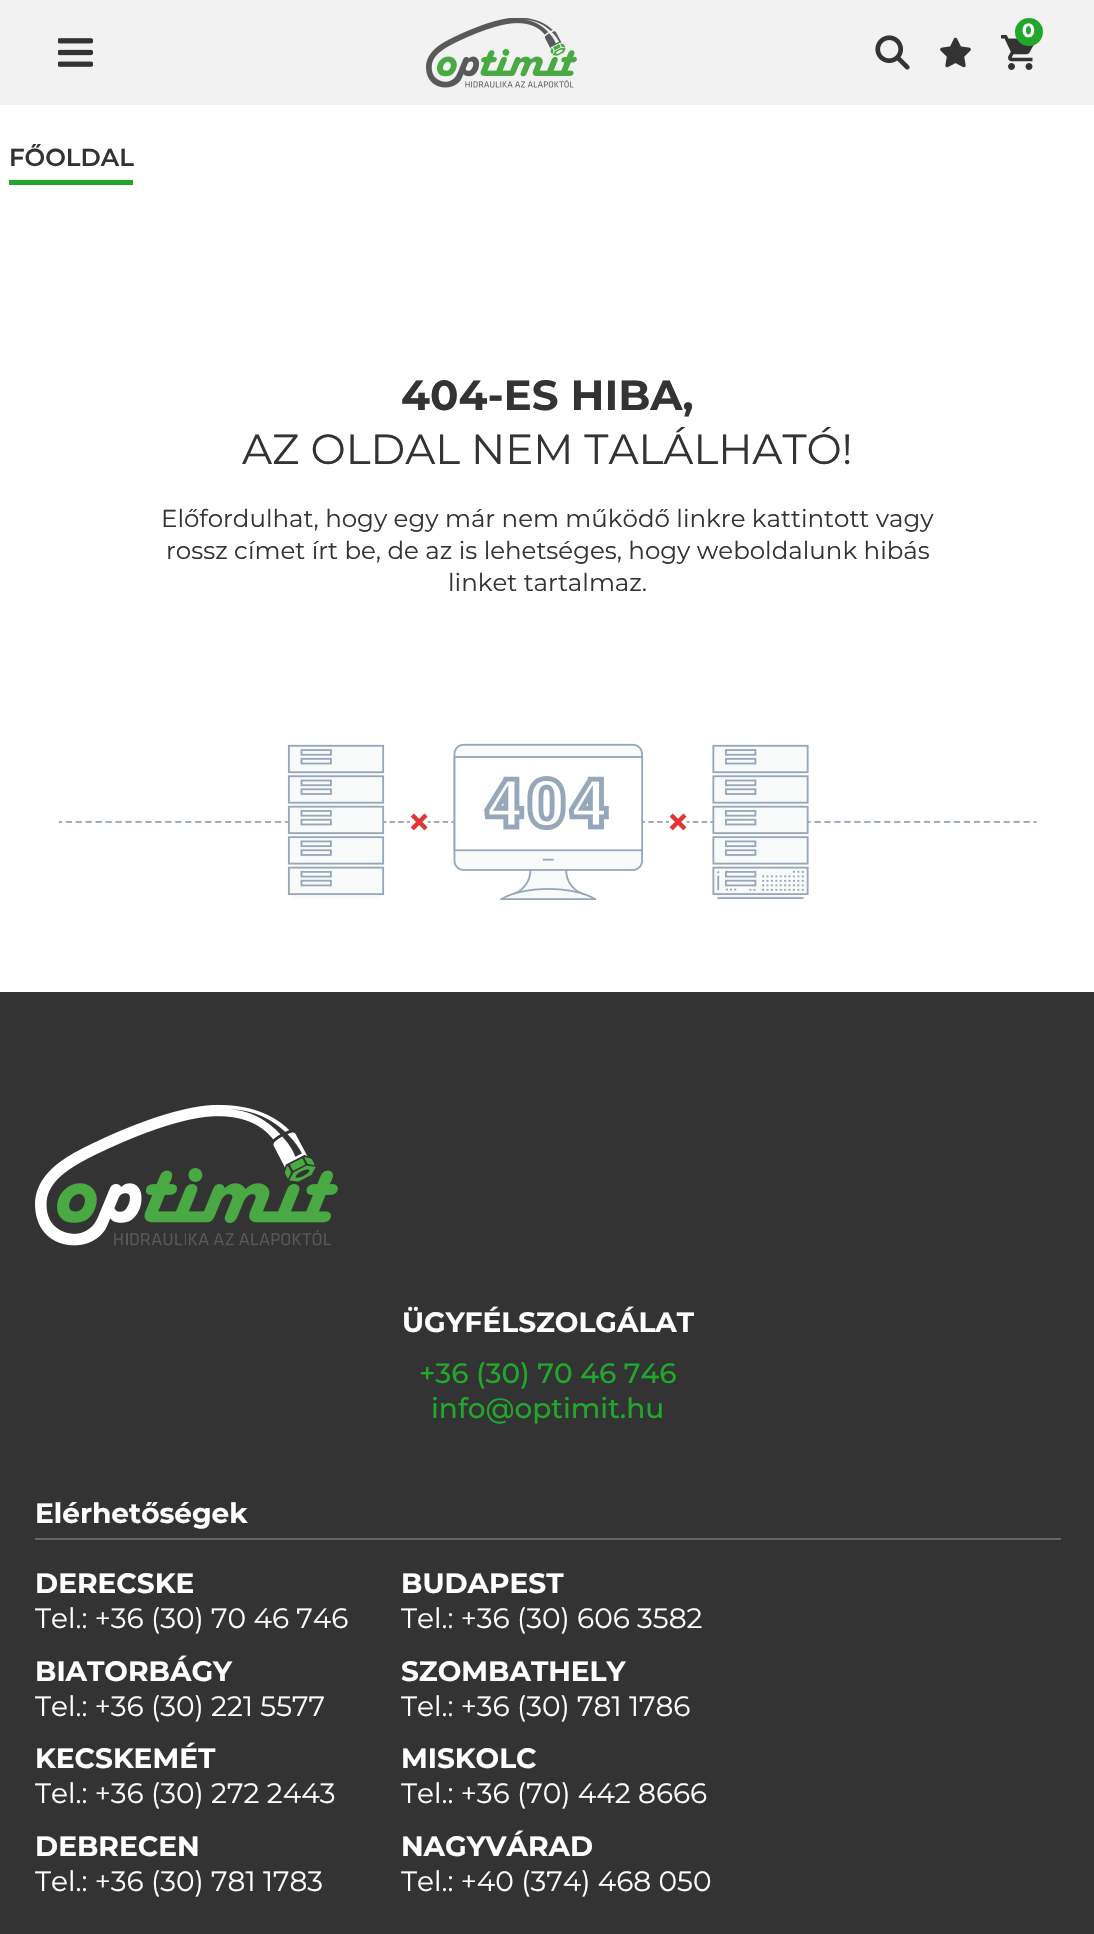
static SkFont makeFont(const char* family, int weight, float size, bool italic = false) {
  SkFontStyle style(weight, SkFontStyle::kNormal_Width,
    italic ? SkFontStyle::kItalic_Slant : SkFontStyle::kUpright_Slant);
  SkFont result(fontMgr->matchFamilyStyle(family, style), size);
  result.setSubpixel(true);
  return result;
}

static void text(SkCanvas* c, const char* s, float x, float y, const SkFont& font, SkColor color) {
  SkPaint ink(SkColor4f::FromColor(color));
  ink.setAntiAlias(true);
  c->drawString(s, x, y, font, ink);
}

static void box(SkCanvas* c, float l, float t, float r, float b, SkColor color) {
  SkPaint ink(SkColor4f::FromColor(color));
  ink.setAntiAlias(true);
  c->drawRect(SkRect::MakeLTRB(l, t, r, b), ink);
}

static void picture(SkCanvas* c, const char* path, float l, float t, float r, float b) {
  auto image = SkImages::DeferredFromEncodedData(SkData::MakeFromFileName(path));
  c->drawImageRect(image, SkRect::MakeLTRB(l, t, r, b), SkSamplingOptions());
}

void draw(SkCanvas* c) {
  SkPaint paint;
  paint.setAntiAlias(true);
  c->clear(0xffffffff);
  box(c, 0, 0, 1094, 105, 0xfff2f2f2);
  picture(c, "img_01.png", 426, 18, 577, 88);
  picture(c, "img_02.png", 1001, 35, 1035, 70);
  paint.setColor(0xff21a72c);
  c->drawCircle(1029, 32, 14, paint);
  SkFont face1 = makeFont("Montserrat", 700, 19);
  text(c, "0", 1022, 37, face1, 0xffffffff);
  picture(c, "img_03.png", 875, 35, 910, 70);
  picture(c, "img_04.png", 940, 37, 971, 68);
  picture(c, "img_05.png", 58, 38, 93, 67);
  box(c, 9, 180, 133, 185, 0xff21a72c);
  SkFont face2 = makeFont("Montserrat", 600, 24.5f);
  text(c, "FŐOLDAL", 9, 166, face2, 0xff333333);
  SkFont face3 = makeFont("Montserrat", 700, 42);
  text(c, "404-ES HIBA,", 401, 410, face3, 0xff333333);
  SkFont face4 = makeFont("Montserrat", 400, 42);
  text(c, "AZ OLDAL NEM TALÁLHATÓ!", 242, 464, face4, 0xff333333);
  SkFont face5 = makeFont("Montserrat", 400, 24.5f);
  text(c, "Előfordulhat, hogy egy már nem működő linkre kattintott vagy", 161, 527, face5, 0xff333333);
  text(c, "rossz címet írt be, de az is lehetséges, hogy weboldalunk hibás", 166, 559, face5, 0xff333333);
  text(c, "linket tartalmaz.", 448, 591, face5, 0xff333333);
  picture(c, "img_06.png", 58, 743, 1037, 900);
  box(c, 0, 992, 1094, 1934, 0xff333333);
  picture(c, "img_07.png", 35, 1104, 338, 1246);
  SkFont face6 = makeFont("Montserrat", 700, 28);
  text(c, "ÜGYFÉLSZOLGÁLAT", 402, 1332, face6, 0xffffffff);
  SkFont face7 = makeFont("Montserrat", 500, 28);
  text(c, "+36 (30) 70 46 746", 419, 1383, face7, 0xff21a72c);
  text(c, "info@optimit.hu", 431, 1418, face7, 0xff21a72c);
  box(c, 35, 1538, 1061, 1540, 0xff666666);
  text(c, "Elérhetőségek", 35, 1523, face6, 0xffffffff);
  text(c, "DERECSKE", 35, 1593, face6, 0xffffffff);
  SkFont face8 = makeFont("Montserrat", 400, 28);
  text(c, "Tel.: +36 (30) 70 46 746", 35, 1628, face8, 0xffffffff);
  text(c, "BIATORBÁGY", 35, 1681, face6, 0xffffffff);
  text(c, "Tel.: +36 (30) 221 5577", 35, 1716, face8, 0xffffffff);
  text(c, "KECSKEMÉT", 35, 1768, face6, 0xffffffff);
  text(c, "Tel.: +36 (30) 272 2443", 35, 1803, face8, 0xffffffff);
  text(c, "DEBRECEN", 35, 1856, face6, 0xffffffff);
  text(c, "Tel.: +36 (30) 781 1783", 35, 1891, face8, 0xffffffff);
  text(c, "BUDAPEST", 401, 1593, face6, 0xffffffff);
  text(c, "Tel.: +36 (30) 606 3582", 401, 1628, face8, 0xffffffff);
  text(c, "SZOMBATHELY", 401, 1681, face6, 0xffffffff);
  text(c, "Tel.: +36 (30) 781 1786", 401, 1716, face8, 0xffffffff);
  text(c, "MISKOLC", 401, 1768, face6, 0xffffffff);
  text(c, "Tel.: +36 (70) 442 8666", 401, 1803, face8, 0xffffffff);
  text(c, "NAGYVÁRAD", 401, 1856, face6, 0xffffffff);
  text(c, "Tel.: +40 (374) 468 050", 401, 1891, face8, 0xffffffff);
}
